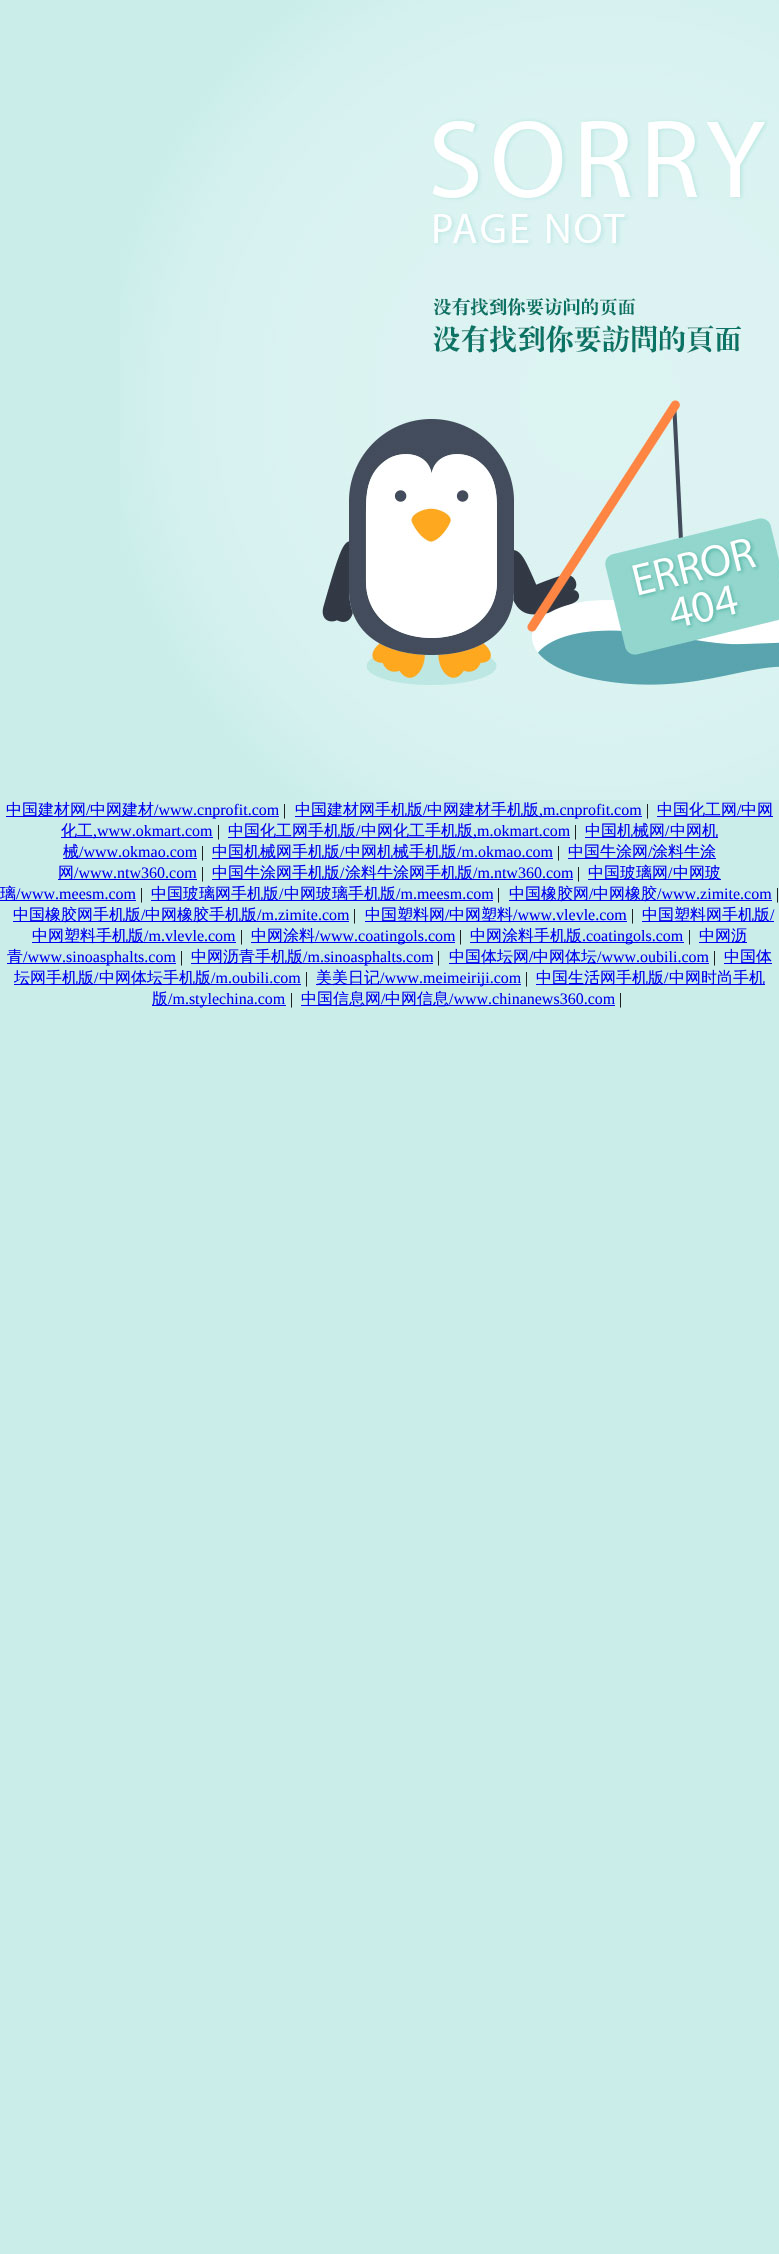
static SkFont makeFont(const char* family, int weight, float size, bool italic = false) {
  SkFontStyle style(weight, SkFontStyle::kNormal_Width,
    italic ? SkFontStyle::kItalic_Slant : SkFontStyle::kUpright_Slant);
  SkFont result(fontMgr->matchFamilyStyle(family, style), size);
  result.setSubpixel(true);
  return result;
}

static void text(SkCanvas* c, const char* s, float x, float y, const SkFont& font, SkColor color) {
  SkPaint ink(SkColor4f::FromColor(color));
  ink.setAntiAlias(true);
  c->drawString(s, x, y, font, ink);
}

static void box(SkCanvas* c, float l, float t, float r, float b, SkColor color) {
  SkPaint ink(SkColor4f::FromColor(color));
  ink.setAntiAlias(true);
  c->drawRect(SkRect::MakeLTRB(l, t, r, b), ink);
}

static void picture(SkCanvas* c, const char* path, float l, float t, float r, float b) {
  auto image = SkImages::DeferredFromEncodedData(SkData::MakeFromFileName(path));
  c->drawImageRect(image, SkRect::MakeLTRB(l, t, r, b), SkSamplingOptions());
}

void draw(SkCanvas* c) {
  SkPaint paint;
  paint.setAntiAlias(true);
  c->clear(0xffcaede9);
  picture(c, "img_01.png", 120, 0, 779, 800);
  box(c, 6, 816, 279, 817, 0xff0000ee);
  SkFont face1 = makeFont("WenQuanYi Zen Hei", 500, 16);
  text(c, "中国建材网", 6, 815, face1, 0xff0000ee);
  SkFont face2 = makeFont("Liberation Serif", 400, 16);
  text(c, "/", 86, 815, face2, 0xff0000ee);
  text(c, "中网建材", 90, 815, face1, 0xff0000ee);
  text(c, "/www.cnprofit.com", 154, 815, face2, 0xff0000ee);
  text(c, "|", 283, 815, face2, 0xff000000);
  box(c, 295, 816, 642, 817, 0xff0000ee);
  text(c, "中国建材网手机版", 295, 815, face1, 0xff0000ee);
  text(c, "/", 423, 815, face2, 0xff0000ee);
  text(c, "中网建材手机版", 427, 815, face1, 0xff0000ee);
  text(c, ",m.cnprofit.com", 539, 815, face2, 0xff0000ee);
  text(c, "|", 646, 815, face2, 0xff000000);
  box(c, 657, 816, 773, 817, 0xff0000ee);
  text(c, "中国化工网", 657, 815, face1, 0xff0000ee);
  text(c, "/", 737, 815, face2, 0xff0000ee);
  text(c, "中网", 741, 815, face1, 0xff0000ee);
  box(c, 61, 837, 213, 838, 0xff0000ee);
  text(c, "化工", 61, 836, face1, 0xff0000ee);
  text(c, ",www.okmart.com", 93, 836, face2, 0xff0000ee);
  text(c, "|", 217, 836, face2, 0xff000000);
  box(c, 228, 837, 570, 838, 0xff0000ee);
  text(c, "中国化工网手机版", 228, 836, face1, 0xff0000ee);
  text(c, "/", 356, 836, face2, 0xff0000ee);
  text(c, "中网化工手机版", 361, 836, face1, 0xff0000ee);
  text(c, ",m.okmart.com", 473, 836, face2, 0xff0000ee);
  text(c, "|", 574, 836, face2, 0xff000000);
  box(c, 585, 837, 718, 838, 0xff0000ee);
  text(c, "中国机械网", 585, 836, face1, 0xff0000ee);
  text(c, "/", 665, 836, face2, 0xff0000ee);
  text(c, "中网机", 670, 836, face1, 0xff0000ee);
  box(c, 63, 858, 197, 859, 0xff0000ee);
  text(c, "械", 63, 857, face1, 0xff0000ee);
  text(c, "/www.okmao.com", 79, 857, face2, 0xff0000ee);
  text(c, "|", 201, 857, face2, 0xff000000);
  box(c, 212, 858, 553, 859, 0xff0000ee);
  text(c, "中国机械网手机版", 212, 857, face1, 0xff0000ee);
  text(c, "/", 340, 857, face2, 0xff0000ee);
  text(c, "中网机械手机版", 345, 857, face1, 0xff0000ee);
  text(c, "/m.okmao.com", 457, 857, face2, 0xff0000ee);
  text(c, "|", 557, 857, face2, 0xff000000);
  box(c, 568, 858, 716, 859, 0xff0000ee);
  text(c, "中国牛涂网", 568, 857, face1, 0xff0000ee);
  text(c, "/", 648, 857, face2, 0xff0000ee);
  text(c, "涂料牛涂", 652, 857, face1, 0xff0000ee);
  box(c, 58, 879, 197, 880, 0xff0000ee);
  text(c, "网", 58, 878, face1, 0xff0000ee);
  text(c, "/www.ntw360.com", 74, 878, face2, 0xff0000ee);
  text(c, "|", 201, 878, face2, 0xff000000);
  box(c, 212, 879, 573, 880, 0xff0000ee);
  text(c, "中国牛涂网手机版", 212, 878, face1, 0xff0000ee);
  text(c, "/", 340, 878, face2, 0xff0000ee);
  text(c, "涂料牛涂网手机版", 345, 878, face1, 0xff0000ee);
  text(c, "/m.ntw360.com", 473, 878, face2, 0xff0000ee);
  text(c, "|", 577, 878, face2, 0xff000000);
  box(c, 588, 879, 721, 880, 0xff0000ee);
  text(c, "中国玻璃网", 588, 878, face1, 0xff0000ee);
  text(c, "/", 668, 878, face2, 0xff0000ee);
  text(c, "中网玻", 673, 878, face1, 0xff0000ee);
  box(c, 0, 900, 136, 901, 0xff0000ee);
  text(c, "璃", 0, 899, face1, 0xff0000ee);
  text(c, "/www.meesm.com", 16, 899, face2, 0xff0000ee);
  text(c, "|", 140, 899, face2, 0xff000000);
  box(c, 151, 900, 493, 901, 0xff0000ee);
  text(c, "中国玻璃网手机版", 151, 899, face1, 0xff0000ee);
  text(c, "/", 279, 899, face2, 0xff0000ee);
  text(c, "中网玻璃手机版", 284, 899, face1, 0xff0000ee);
  text(c, "/m.meesm.com", 396, 899, face2, 0xff0000ee);
  text(c, "|", 497, 899, face2, 0xff000000);
  box(c, 509, 900, 772, 901, 0xff0000ee);
  text(c, "中国橡胶网", 509, 899, face1, 0xff0000ee);
  text(c, "/", 589, 899, face2, 0xff0000ee);
  text(c, "中网橡胶", 593, 899, face1, 0xff0000ee);
  text(c, "/www.zimite.com", 657, 899, face2, 0xff0000ee);
  text(c, "|", 776, 899, face2, 0xff000000);
  box(c, 13, 921, 349, 922, 0xff0000ee);
  text(c, "中国橡胶网手机版", 13, 920, face1, 0xff0000ee);
  text(c, "/", 141, 920, face2, 0xff0000ee);
  text(c, "中网橡胶手机版", 145, 920, face1, 0xff0000ee);
  text(c, "/m.zimite.com", 257, 920, face2, 0xff0000ee);
  text(c, "|", 353, 920, face2, 0xff000000);
  box(c, 365, 921, 627, 922, 0xff0000ee);
  text(c, "中国塑料网", 365, 920, face1, 0xff0000ee);
  text(c, "/", 445, 920, face2, 0xff0000ee);
  text(c, "中网塑料", 449, 920, face1, 0xff0000ee);
  text(c, "/www.vlevle.com", 513, 920, face2, 0xff0000ee);
  text(c, "|", 631, 920, face2, 0xff000000);
  box(c, 642, 921, 774, 922, 0xff0000ee);
  text(c, "中国塑料网手机版", 642, 920, face1, 0xff0000ee);
  text(c, "/", 770, 920, face2, 0xff0000ee);
  box(c, 32, 942, 236, 943, 0xff0000ee);
  text(c, "中网塑料手机版", 32, 941, face1, 0xff0000ee);
  text(c, "/m.vlevle.com", 144, 941, face2, 0xff0000ee);
  text(c, "|", 240, 941, face2, 0xff000000);
  box(c, 251, 942, 455, 943, 0xff0000ee);
  text(c, "中网涂料", 251, 941, face1, 0xff0000ee);
  text(c, "/www.coatingols.com", 315, 941, face2, 0xff0000ee);
  text(c, "|", 459, 941, face2, 0xff000000);
  box(c, 470, 942, 684, 943, 0xff0000ee);
  text(c, "中网涂料手机版", 470, 941, face1, 0xff0000ee);
  text(c, ".coatingols.com", 582, 941, face2, 0xff0000ee);
  text(c, "|", 688, 941, face2, 0xff000000);
  box(c, 699, 942, 747, 943, 0xff0000ee);
  text(c, "中网沥", 699, 941, face1, 0xff0000ee);
  box(c, 7, 963, 176, 964, 0xff0000ee);
  text(c, "青", 7, 962, face1, 0xff0000ee);
  text(c, "/www.sinoasphalts.com", 23, 962, face2, 0xff0000ee);
  text(c, "|", 180, 962, face2, 0xff000000);
  box(c, 191, 963, 433, 964, 0xff0000ee);
  text(c, "中网沥青手机版", 191, 962, face1, 0xff0000ee);
  text(c, "/m.sinoasphalts.com", 303, 962, face2, 0xff0000ee);
  text(c, "|", 437, 962, face2, 0xff000000);
  box(c, 449, 963, 709, 964, 0xff0000ee);
  text(c, "中国体坛网", 449, 962, face1, 0xff0000ee);
  text(c, "/", 529, 962, face2, 0xff0000ee);
  text(c, "中网体坛", 533, 962, face1, 0xff0000ee);
  text(c, "/www.oubili.com", 597, 962, face2, 0xff0000ee);
  text(c, "|", 713, 962, face2, 0xff000000);
  box(c, 724, 963, 772, 964, 0xff0000ee);
  text(c, "中国体", 724, 962, face1, 0xff0000ee);
  box(c, 14, 984, 301, 985, 0xff0000ee);
  text(c, "坛网手机版", 14, 983, face1, 0xff0000ee);
  text(c, "/", 94, 983, face2, 0xff0000ee);
  text(c, "中网体坛手机版", 99, 983, face1, 0xff0000ee);
  text(c, "/m.oubili.com", 211, 983, face2, 0xff0000ee);
  text(c, "|", 305, 983, face2, 0xff000000);
  box(c, 316, 984, 521, 985, 0xff0000ee);
  text(c, "美美日记", 316, 983, face1, 0xff0000ee);
  text(c, "/www.meimeiriji.com", 380, 983, face2, 0xff0000ee);
  text(c, "|", 525, 983, face2, 0xff000000);
  box(c, 536, 984, 765, 985, 0xff0000ee);
  text(c, "中国生活网手机版", 536, 983, face1, 0xff0000ee);
  text(c, "/", 664, 983, face2, 0xff0000ee);
  text(c, "中网时尚手机", 669, 983, face1, 0xff0000ee);
  box(c, 152, 1005, 286, 1006, 0xff0000ee);
  text(c, "版", 152, 1004, face1, 0xff0000ee);
  text(c, "/m.stylechina.com", 168, 1004, face2, 0xff0000ee);
  text(c, "|", 290, 1004, face2, 0xff000000);
  box(c, 301, 1005, 615, 1006, 0xff0000ee);
  text(c, "中国信息网", 301, 1004, face1, 0xff0000ee);
  text(c, "/", 381, 1004, face2, 0xff0000ee);
  text(c, "中网信息", 385, 1004, face1, 0xff0000ee);
  text(c, "/www.chinanews360.com", 449, 1004, face2, 0xff0000ee);
  text(c, "|", 619, 1004, face2, 0xff000000);
}
